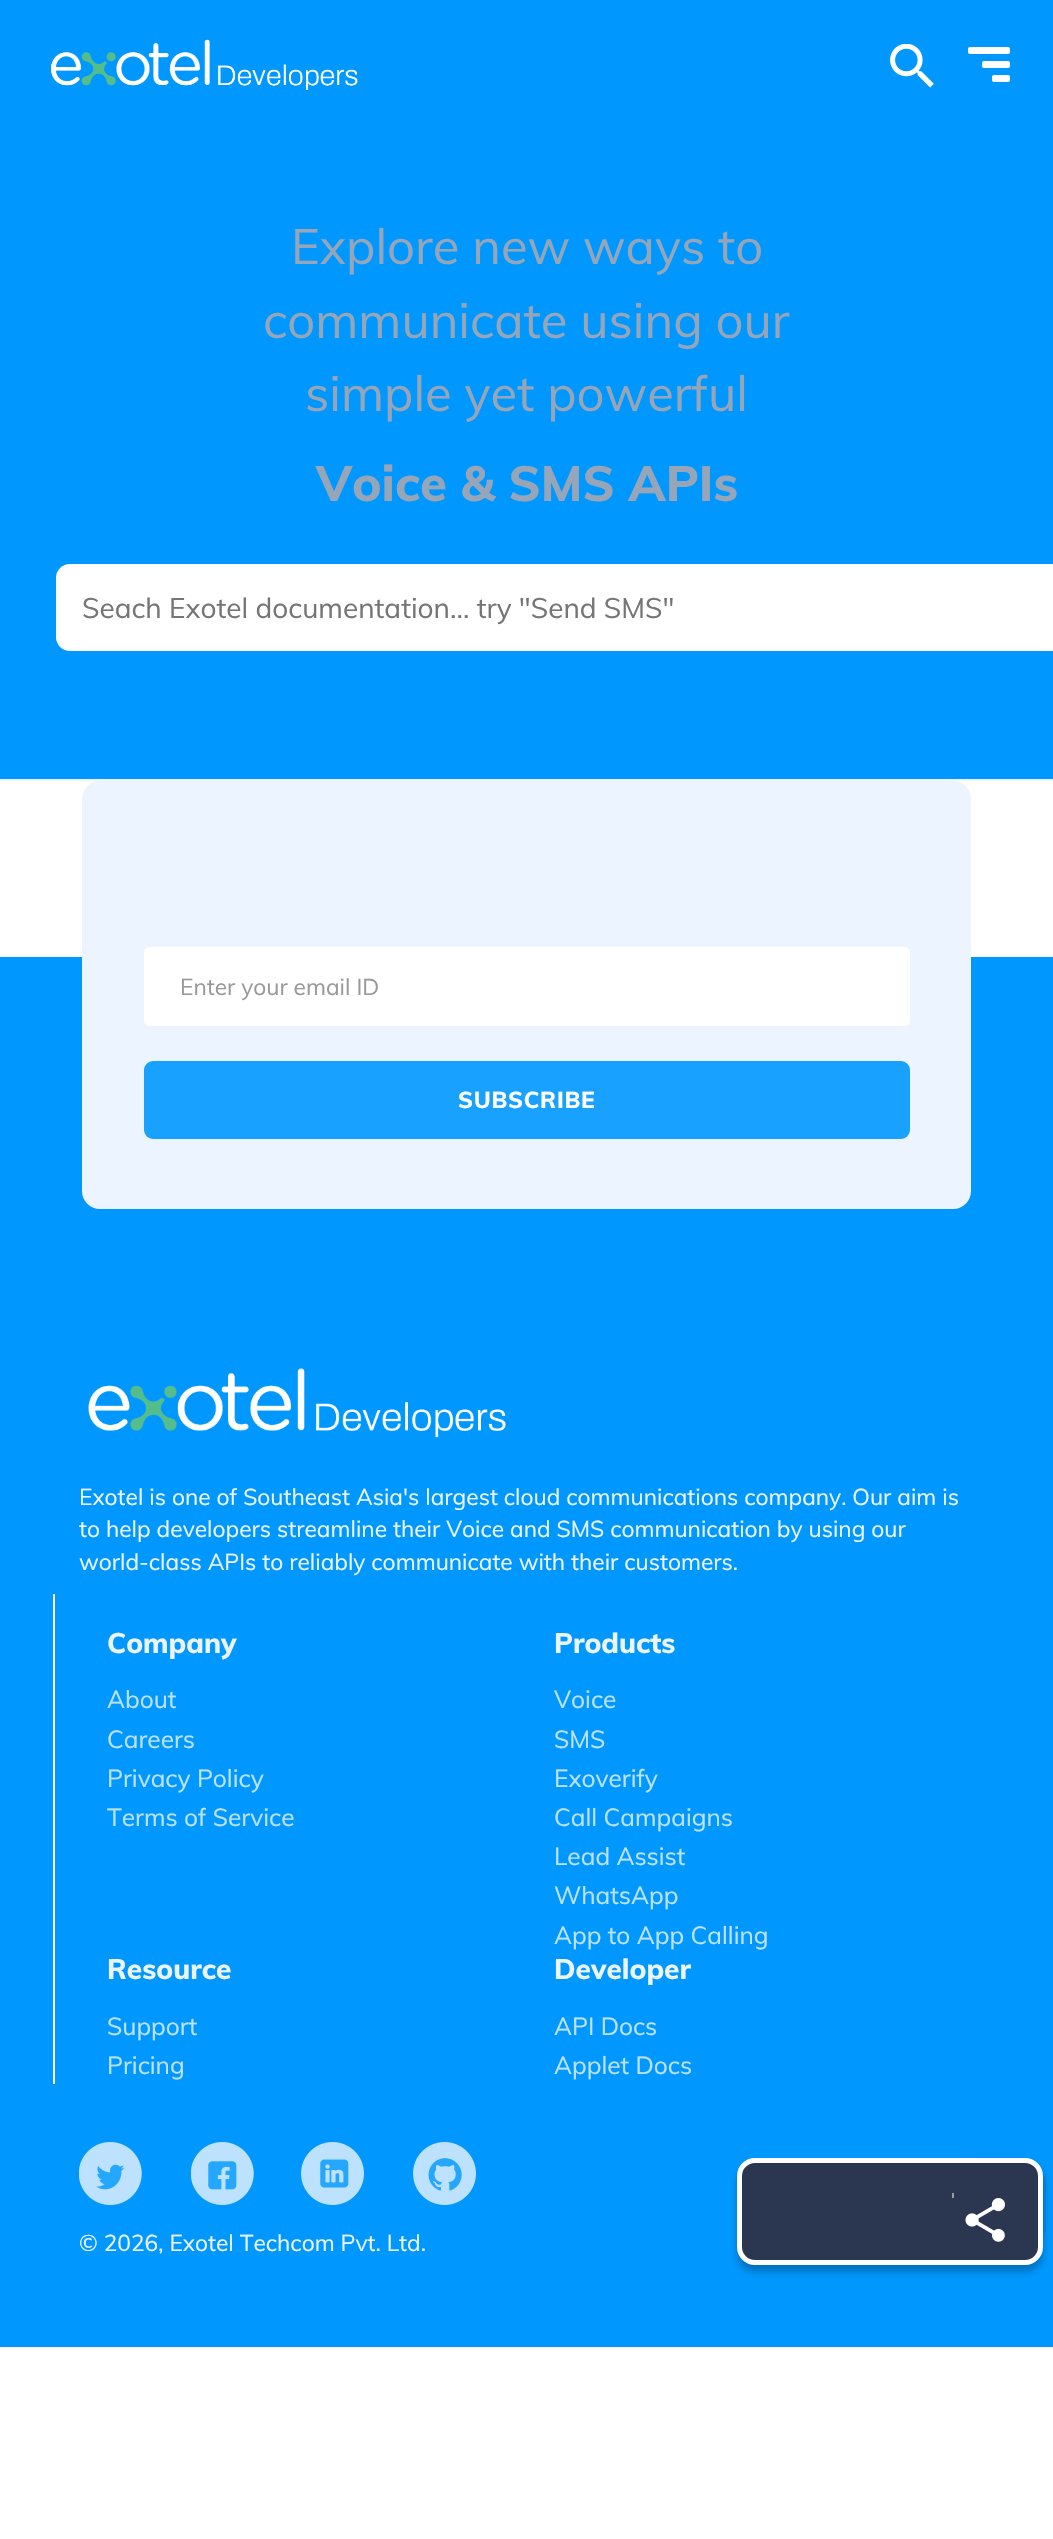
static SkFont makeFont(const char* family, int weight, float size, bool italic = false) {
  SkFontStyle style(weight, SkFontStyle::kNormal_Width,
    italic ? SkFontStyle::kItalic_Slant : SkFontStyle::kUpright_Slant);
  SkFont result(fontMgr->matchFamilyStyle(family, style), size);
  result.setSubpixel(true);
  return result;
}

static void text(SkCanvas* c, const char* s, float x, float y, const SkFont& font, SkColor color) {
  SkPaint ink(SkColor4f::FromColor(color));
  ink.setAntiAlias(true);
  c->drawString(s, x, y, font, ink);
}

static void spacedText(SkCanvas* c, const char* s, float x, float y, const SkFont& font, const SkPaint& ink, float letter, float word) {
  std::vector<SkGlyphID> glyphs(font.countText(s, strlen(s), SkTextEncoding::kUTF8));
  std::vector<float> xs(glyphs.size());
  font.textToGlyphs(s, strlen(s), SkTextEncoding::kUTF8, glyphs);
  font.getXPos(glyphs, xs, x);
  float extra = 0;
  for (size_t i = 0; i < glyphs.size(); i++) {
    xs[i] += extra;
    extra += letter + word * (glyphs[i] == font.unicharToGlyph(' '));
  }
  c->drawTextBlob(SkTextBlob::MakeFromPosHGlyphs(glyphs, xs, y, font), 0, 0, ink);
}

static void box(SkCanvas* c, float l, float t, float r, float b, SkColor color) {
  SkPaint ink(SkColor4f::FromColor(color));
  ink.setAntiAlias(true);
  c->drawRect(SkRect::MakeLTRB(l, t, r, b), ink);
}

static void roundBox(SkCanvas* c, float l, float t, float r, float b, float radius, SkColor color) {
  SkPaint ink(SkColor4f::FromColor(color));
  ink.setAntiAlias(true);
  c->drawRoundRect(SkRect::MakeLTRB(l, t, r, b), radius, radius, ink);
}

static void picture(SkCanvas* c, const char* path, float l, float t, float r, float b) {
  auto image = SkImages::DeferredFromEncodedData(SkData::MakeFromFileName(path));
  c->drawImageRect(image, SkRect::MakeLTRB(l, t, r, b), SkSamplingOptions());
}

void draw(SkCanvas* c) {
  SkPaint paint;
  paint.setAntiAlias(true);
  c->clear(0xffffffff);
  box(c, 0, 0, 1053, 779, 0xff0098ff);
  picture(c, "img_01.png", 51, 39, 358, 90);
  picture(c, "img_02.png", 890, 44, 934, 88);
  roundBox(c, 968, 47, 1010, 54, 2, 0xffffffff);
  roundBox(c, 982, 61, 1010, 68, 2, 0xffffffff);
  roundBox(c, 992, 75, 1010, 82, 2, 0xffffffff);
  SkFont face1 = makeFont("Muli", 400, 49);
  text(c, "Explore new ways to", 291, 264, face1, 0xff96a5b8);
  text(c, "communicate using our", 263, 338, face1, 0xff96a5b8);
  text(c, "simple yet powerful", 305, 411, face1, 0xff96a5b8);
  SkFont face2 = makeFont("Muli", 800, 49);
  text(c, "Voice & SMS APIs", 316, 501, face2, 0xff96a5b8);
  roundBox(c, 56, 564, 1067, 651, 14, 0xffffffff);
  SkFont face3 = makeFont("Muli", 400, 28);
  text(c, "Seach Exotel documentation... try \"Send SMS\"", 82, 618, face3, 0xff757575);
  box(c, 0, 779, 1053, 781, 0xffebf4ff);
  box(c, 0, 957, 1053, 2347, 0xff0098ff);
  roundBox(c, 82, 781, 971, 1209, 18, 0xffebf4ff);
  roundBox(c, 144, 947, 910, 1026, 5, 0xffffffff);
  SkFont face4 = makeFont("Muli", 400, 22.75f);
  text(c, "Enter your email ID", 180, 995, face4, 0xff999999);
  roundBox(c, 144, 1061, 910, 1139, 9, 0xff18a1ff);
  SkFont face5 = makeFont("Muli", 800, 22.75f);
  paint.setColor(0xfffdfeff);
  spacedText(c, "SUBSCRIBE", 458, 1108, face5, paint, 0.75f, 0);
  picture(c, "img_03.png", 88, 1368, 506, 1438);
  text(c, "Exotel is one of Southeast Asia's largest cloud communications company. Our aim is", 79, 1505, face4, 0xffebf4ff);
  text(c, "to help developers streamline their Voice and SMS communication by using our", 79, 1537, face4, 0xffebf4ff);
  text(c, "world-class APIs to reliably communicate with their customers.", 79, 1570, face4, 0xffebf4ff);
  box(c, 53, 1594, 55, 2084, 0xffffffff);
  SkFont face6 = makeFont("Muli", 800, 28);
  text(c, "Company", 107, 1653, face6, 0xffebf4ff);
  SkFont face7 = makeFont("Muli", 400, 24.5f);
  text(c, "About", 107, 1708, face7, 0xffbce2ff);
  text(c, "Careers", 107, 1748, face7, 0xffbce2ff);
  text(c, "Privacy Policy", 107, 1787, face7, 0xffbce2ff);
  text(c, "Terms of Service", 107, 1826, face7, 0xffbce2ff);
  text(c, "Products", 554, 1653, face6, 0xffebf4ff);
  text(c, "Voice", 554, 1708, face7, 0xffbce2ff);
  text(c, "SMS", 554, 1748, face7, 0xffbce2ff);
  text(c, "Exoverify", 554, 1787, face7, 0xffbce2ff);
  text(c, "Call Campaigns", 554, 1826, face7, 0xffbce2ff);
  text(c, "Lead Assist", 554, 1865, face7, 0xffbce2ff);
  text(c, "WhatsApp", 554, 1904, face7, 0xffbce2ff);
  text(c, "App to App Calling", 554, 1944, face7, 0xffbce2ff);
  text(c, "Resource", 107, 1979, face6, 0xffebf4ff);
  text(c, "Support", 107, 2035, face7, 0xffbce2ff);
  text(c, "Pricing", 107, 2074, face7, 0xffbce2ff);
  text(c, "Developer", 554, 1979, face6, 0xffebf4ff);
  text(c, "API Docs", 554, 2035, face7, 0xffbce2ff);
  text(c, "Applet Docs", 554, 2074, face7, 0xffbce2ff);
  picture(c, "img_04.png", 79, 2142, 142, 2205);
  picture(c, "img_05.png", 191, 2142, 254, 2205);
  picture(c, "img_06.png", 301, 2142, 364, 2205);
  picture(c, "img_07.png", 413, 2142, 476, 2205);
  text(c, "© 2026, Exotel Techcom Pvt. Ltd.", 79, 2251, face4, 0xffebf4ff);
  paint.setColor(0x40000000);
  paint.setMaskFilter(SkMaskFilter::MakeBlur(kNormal_SkBlurStyle, 3.5f));
  c->drawRoundRect(SkRect::MakeLTRB(737, 2165, 1043, 2272), 18, 18, paint);
  paint.setMaskFilter(nullptr);
  paint.setMaskFilter(SkMaskFilter::MakeBlur(kNormal_SkBlurStyle, 3.5f));
  c->drawRoundRect(SkRect::MakeLTRB(947, 2165, 1043, 2244), 18, 18, paint);
  paint.setMaskFilter(nullptr);
  paint.setColor(0xff2b3650);
  c->drawRoundRect(SkRect::MakeLTRB(739.5f, 2160.5f, 1040.5f, 2262.5f), 15.5f, 15.5f, paint);
  paint.setStyle(SkPaint::kStroke_Style);
  paint.setStrokeWidth(5);
  paint.setColor(0xffffffff);
  c->drawRoundRect(SkRect::MakeLTRB(739.5f, 2160.5f, 1040.5f, 2262.5f), 15.5f, 15.5f, paint);
  box(c, 952, 2193, 954, 2198, 0xff9d9d9d);
  picture(c, "img_08.png", 965, 2198, 1005, 2242);
}
